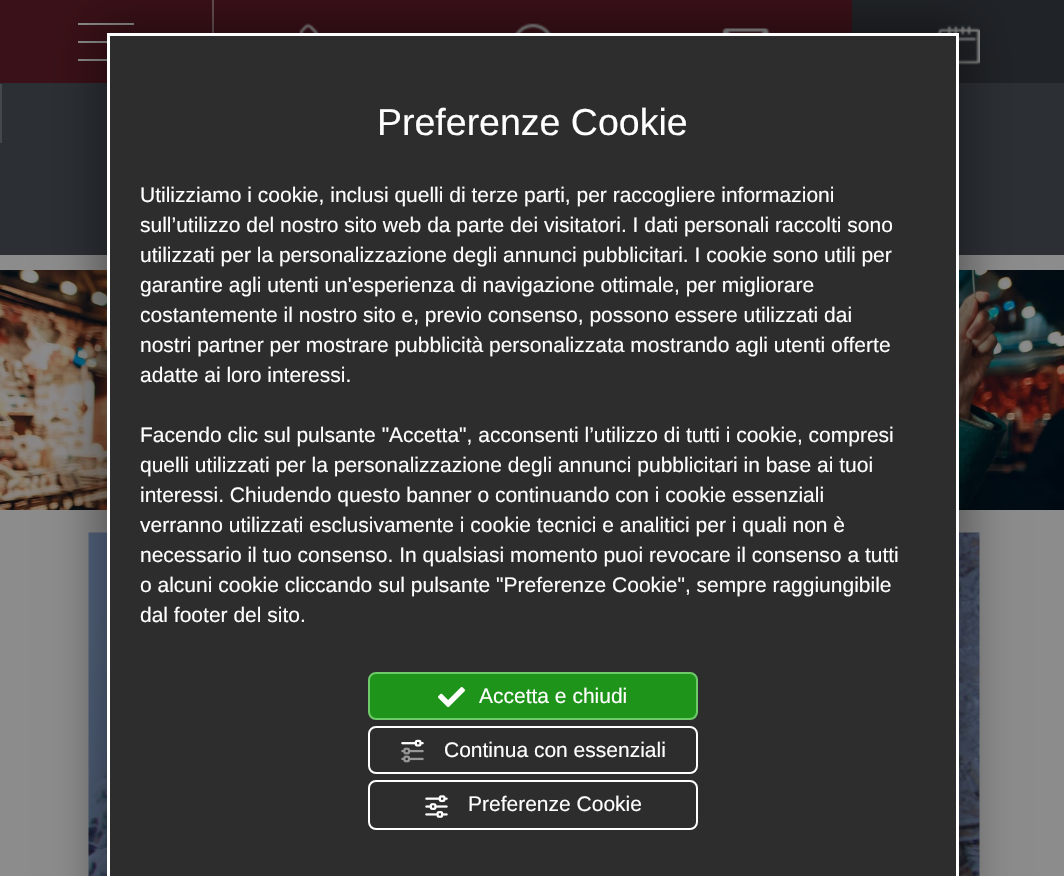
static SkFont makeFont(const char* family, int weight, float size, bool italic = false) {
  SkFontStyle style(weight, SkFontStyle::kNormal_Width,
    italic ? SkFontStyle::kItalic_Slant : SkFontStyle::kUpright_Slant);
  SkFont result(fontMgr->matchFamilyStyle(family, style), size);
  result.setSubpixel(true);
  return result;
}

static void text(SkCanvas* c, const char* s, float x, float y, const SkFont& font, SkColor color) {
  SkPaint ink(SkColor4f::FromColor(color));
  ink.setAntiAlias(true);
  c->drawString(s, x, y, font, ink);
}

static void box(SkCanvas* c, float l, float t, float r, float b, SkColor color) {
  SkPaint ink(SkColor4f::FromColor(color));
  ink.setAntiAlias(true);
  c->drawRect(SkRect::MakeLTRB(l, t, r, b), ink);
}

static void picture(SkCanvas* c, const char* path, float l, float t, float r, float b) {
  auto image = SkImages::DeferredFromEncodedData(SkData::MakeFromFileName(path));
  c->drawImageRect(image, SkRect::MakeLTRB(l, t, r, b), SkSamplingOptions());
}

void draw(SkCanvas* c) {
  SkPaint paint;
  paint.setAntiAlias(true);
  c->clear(0xff8c8c8c);
  box(c, 0, 83, 1064, 255, 0xff2c3035);
  box(c, 0, 0, 852, 83, 0xff3a1118);
  box(c, 212, 0, 214, 33, 0xff644f52);
  box(c, 78, 23, 134, 25, 0xff8c8c8c);
  box(c, 78, 41, 107, 43, 0xff8c8c8c);
  box(c, 78, 59, 107, 61, 0xff8c8c8c);
  picture(c, "img_01.png", 299, 23, 319, 33);
  picture(c, "img_02.png", 514, 23, 552, 33);
  picture(c, "img_03.png", 722, 28, 770, 33);
  box(c, 852, 0, 1064, 83, 0xff202327);
  picture(c, "img_04.png", 937, 25, 980, 65);
  box(c, 0, 84, 2, 143, 0xff44484b);
  picture(c, "img_05.png", 0, 270, 1064, 510);
  picture(c, "img_06.png", 88, 532, 980, 876);
  paint.setColor(0x61000000);
  paint.setMaskFilter(SkMaskFilter::MakeBlur(kNormal_SkBlurStyle, 22));
  c->drawRect(SkRect::MakeLTRB(96, 23, 969, 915), paint);
  paint.setMaskFilter(nullptr);
  paint.setColor(0xff2d2d2d);
  c->drawRect(SkRect::MakeLTRB(108.5f, 34.5f, 957.5f, 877.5f), paint);
  paint.setStyle(SkPaint::kStroke_Style);
  paint.setStrokeWidth(3);
  paint.setColor(0xffffffff);
  c->drawRect(SkRect::MakeLTRB(108.5f, 34.5f, 957.5f, 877.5f), paint);
  SkFont face1 = makeFont("Liberation Sans", 400, 37.5f);
  text(c, "Preferenze Cookie", 377, 135, face1, 0xffffffff);
  SkFont face2 = makeFont("Liberation Sans", 400, 21);
  text(c, "Utilizziamo i cookie, inclusi quelli di terze parti, per raccogliere informazioni", 140, 202, face2, 0xffffffff);
  text(c, "sull’utilizzo del nostro sito web da parte dei visitatori. I dati personali raccolti sono", 140, 232, face2, 0xffffffff);
  text(c, "utilizzati per la personalizzazione degli annunci pubblicitari. I cookie sono utili per", 140, 262, face2, 0xffffffff);
  text(c, "garantire agli utenti un'esperienza di navigazione ottimale, per migliorare", 140, 292, face2, 0xffffffff);
  text(c, "costantemente il nostro sito e, previo consenso, possono essere utilizzati dai", 140, 322, face2, 0xffffffff);
  text(c, "nostri partner per mostrare pubblicità personalizzata mostrando agli utenti offerte", 140, 352, face2, 0xffffffff);
  text(c, "adatte ai loro interessi.", 140, 382, face2, 0xffffffff);
  text(c, "Facendo clic sul pulsante \"Accetta\", acconsenti l’utilizzo di tutti i cookie, compresi", 140, 442, face2, 0xffffffff);
  text(c, "quelli utilizzati per la personalizzazione degli annunci pubblicitari in base ai tuoi", 140, 472, face2, 0xffffffff);
  text(c, "interessi. Chiudendo questo banner o continuando con i cookie essenziali", 140, 502, face2, 0xffffffff);
  text(c, "verranno utilizzati esclusivamente i cookie tecnici e analitici per i quali non è", 140, 532, face2, 0xffffffff);
  text(c, "necessario il tuo consenso. In qualsiasi momento puoi revocare il consenso a tutti", 140, 562, face2, 0xffffffff);
  text(c, "o alcuni cookie cliccando sul pulsante \"Preferenze Cookie\", sempre raggiungibile", 140, 592, face2, 0xffffffff);
  text(c, "dal footer del sito.", 140, 622, face2, 0xffffffff);
  paint.setStyle(SkPaint::kFill_Style);
  paint.setColor(0xff1e941a);
  c->drawRoundRect(SkRect::MakeLTRB(369, 673, 697, 719), 7, 7, paint);
  paint.setStyle(SkPaint::kStroke_Style);
  paint.setStrokeWidth(2);
  paint.setColor(0xff6cca69);
  c->drawRoundRect(SkRect::MakeLTRB(369, 673, 697, 719), 7, 7, paint);
  picture(c, "img_07.png", 438, 687, 465, 708);
  text(c, "Accetta e chiudi", 479, 703, face2, 0xffffffff);
  paint.setColor(0xffffffff);
  c->drawRoundRect(SkRect::MakeLTRB(369, 727, 697, 773), 7, 7, paint);
  picture(c, "img_08.png", 401, 739, 424, 763);
  text(c, "Continua con essenziali", 444, 757, face2, 0xffffffff);
  c->drawRoundRect(SkRect::MakeLTRB(369, 781, 697, 829), 7, 7, paint);
  picture(c, "img_09.png", 425, 795, 448, 818);
  text(c, "Preferenze Cookie", 468, 811, face2, 0xffffffff);
}
